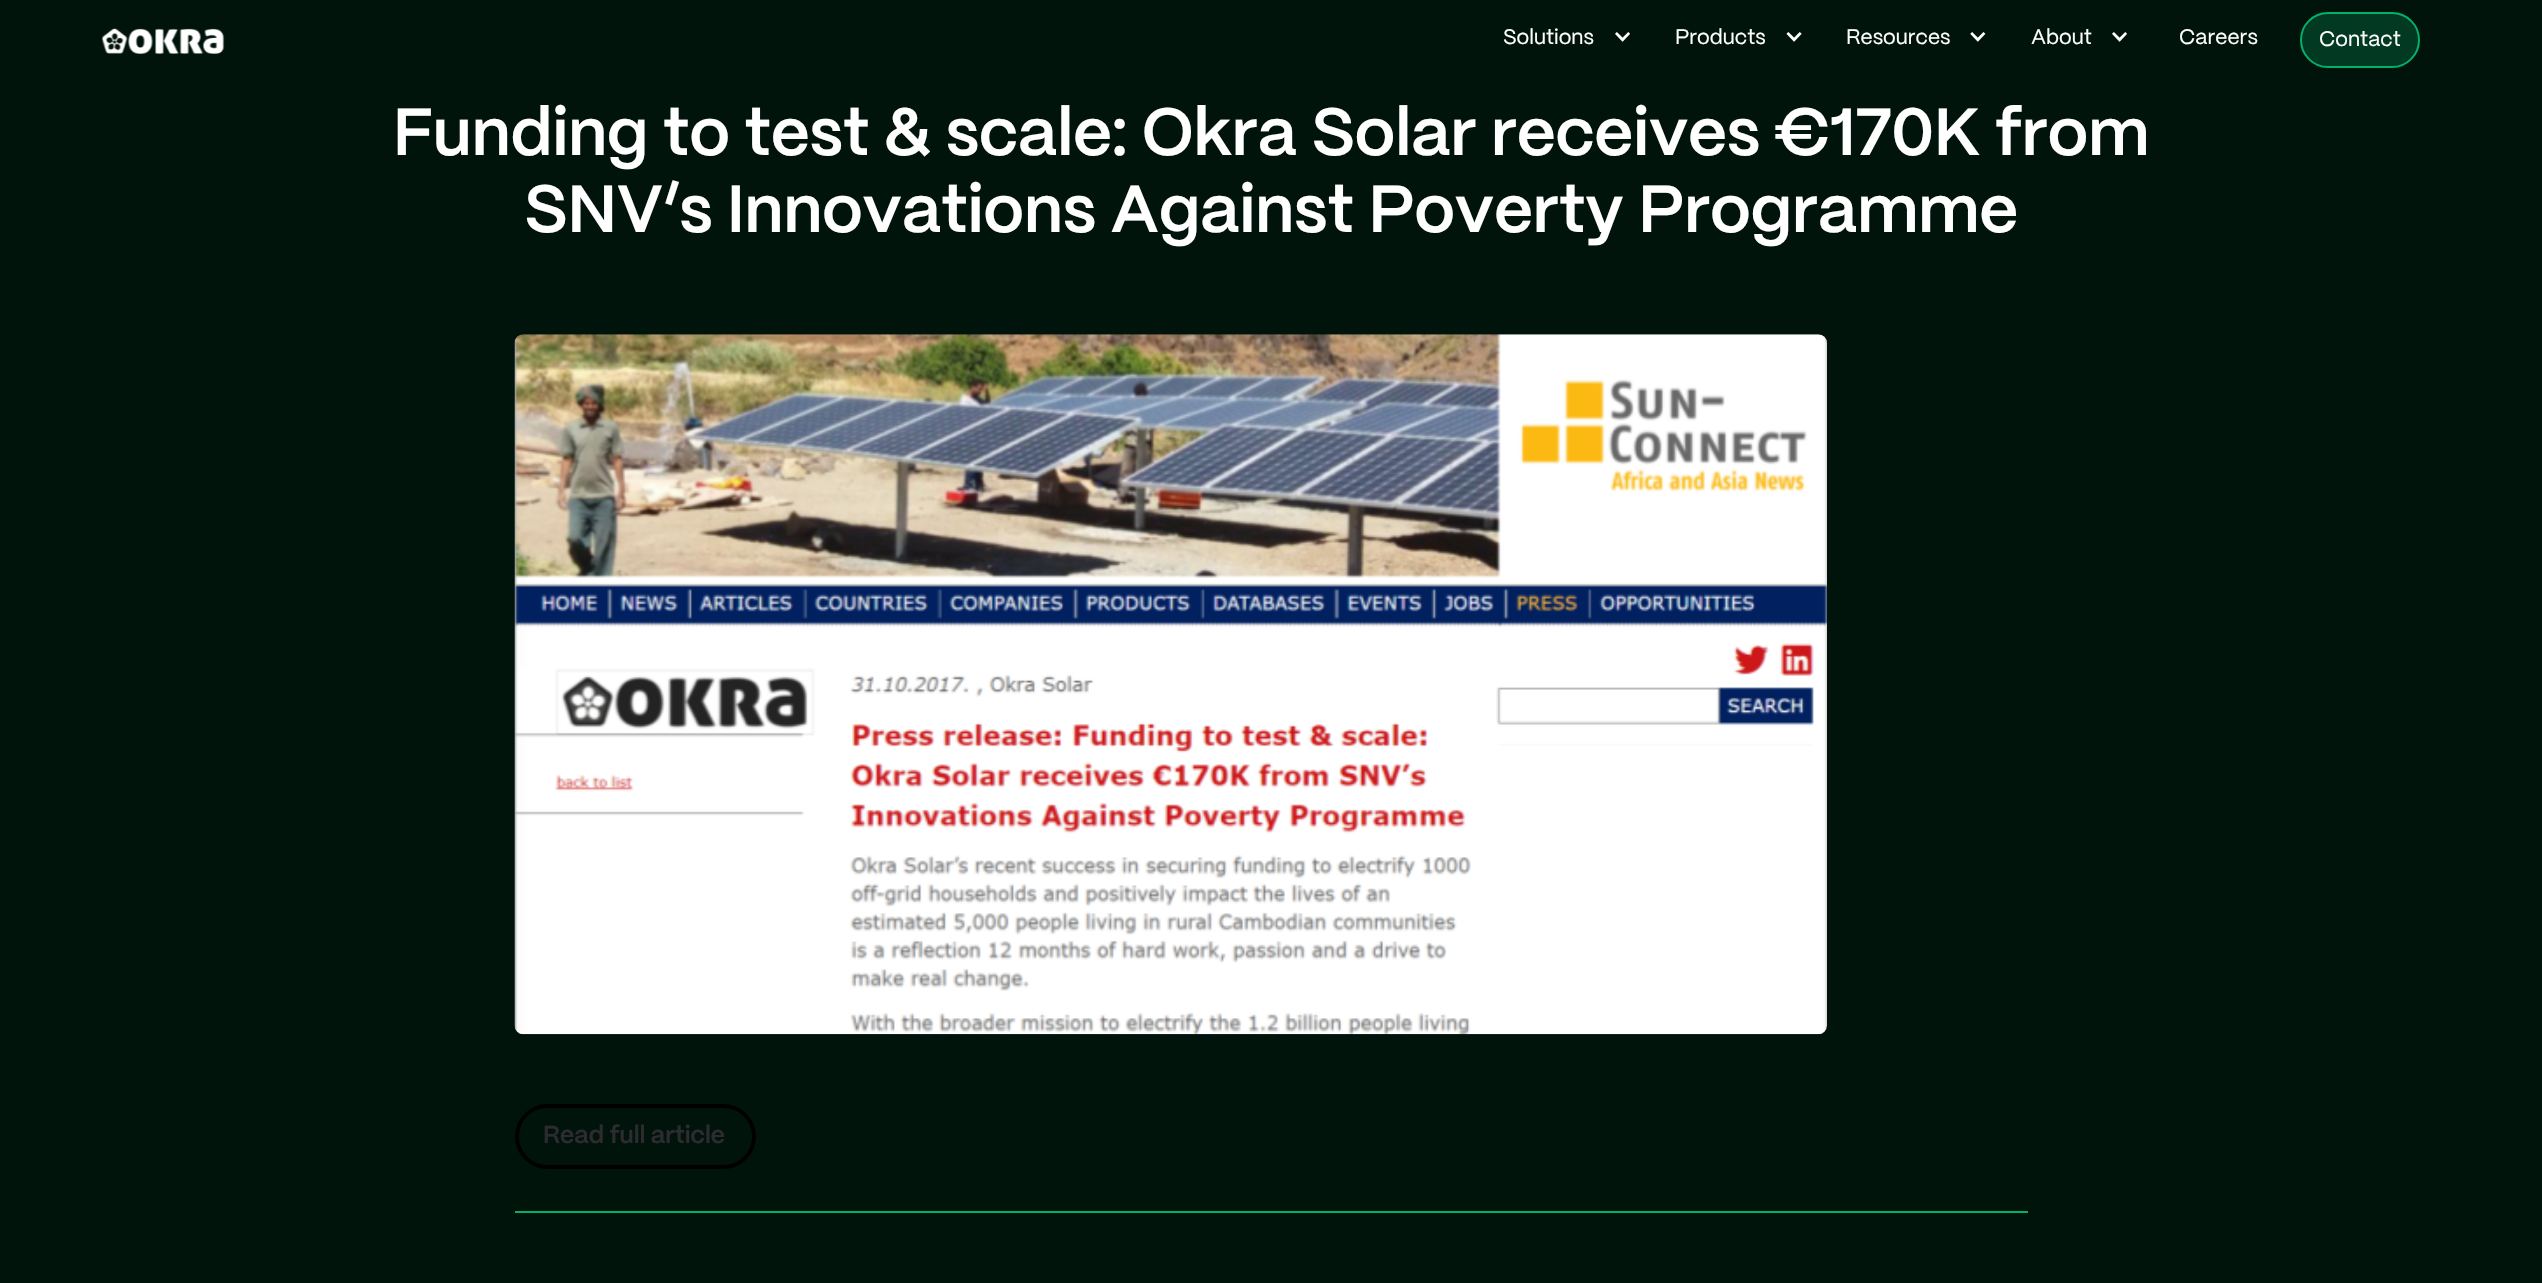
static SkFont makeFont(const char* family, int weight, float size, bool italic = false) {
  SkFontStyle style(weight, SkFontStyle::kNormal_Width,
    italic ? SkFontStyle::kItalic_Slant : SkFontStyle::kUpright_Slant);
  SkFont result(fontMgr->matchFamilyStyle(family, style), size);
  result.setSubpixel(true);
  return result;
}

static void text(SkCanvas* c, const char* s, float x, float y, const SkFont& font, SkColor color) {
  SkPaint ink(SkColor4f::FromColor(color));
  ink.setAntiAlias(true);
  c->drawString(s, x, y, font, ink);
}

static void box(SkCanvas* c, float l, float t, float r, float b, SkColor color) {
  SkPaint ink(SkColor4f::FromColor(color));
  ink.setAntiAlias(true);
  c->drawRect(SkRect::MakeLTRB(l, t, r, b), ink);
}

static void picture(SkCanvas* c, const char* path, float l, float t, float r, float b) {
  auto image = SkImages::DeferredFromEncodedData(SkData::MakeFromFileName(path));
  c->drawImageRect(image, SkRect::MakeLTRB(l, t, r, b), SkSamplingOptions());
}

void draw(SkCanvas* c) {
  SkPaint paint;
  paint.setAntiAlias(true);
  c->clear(0xff01140c);
  picture(c, "img_01.png", 101, 28, 225, 55);
  SkFont face1 = makeFont("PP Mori", 400, 21);
  text(c, "Solutions", 1503, 44, face1, 0xffffffff);
  picture(c, "img_02.png", 1615, 32, 1630, 42);
  text(c, "Products", 1675, 44, face1, 0xffffffff);
  picture(c, "img_03.png", 1786, 32, 1802, 42);
  text(c, "Resources", 1846, 44, face1, 0xffffffff);
  picture(c, "img_04.png", 1970, 32, 1986, 42);
  text(c, "About", 2031, 44, face1, 0xffffffff);
  picture(c, "img_02.png", 2112, 32, 2127, 42);
  text(c, "Careers", 2179, 44, face1, 0xffffffff);
  paint.setColor(0xff023923);
  c->drawRoundRect(SkRect::MakeLTRB(2301, 13, 2419, 67), 27, 27, paint);
  paint.setStyle(SkPaint::kStroke_Style);
  paint.setStrokeWidth(2);
  paint.setColor(0xff00b16c);
  c->drawRoundRect(SkRect::MakeLTRB(2301, 13, 2419, 67), 27, 27, paint);
  text(c, "Contact", 2319, 46, face1, 0xffffffff);
  SkFont face2 = makeFont("PP Mori", 600, 66.5f);
  text(c, "Funding to test & scale: Okra Solar receives €170K from", 393, 155, face2, 0xffffffff);
  text(c, "SNV’s Innovations Against Poverty Programme", 524, 232, face2, 0xffffffff);
  picture(c, "img_05.png", 514, 334, 1827, 1035);
  paint.setStrokeWidth(4);
  paint.setColor(0xff000000);
  c->drawRoundRect(SkRect::MakeLTRB(517, 1106, 754, 1167), 30.5f, 30.5f, paint);
  SkFont face3 = makeFont("PP Mori", 600, 24.5f);
  text(c, "Read full article", 543, 1143, face3, 0xff2e2b30);
  box(c, 515, 1211, 2028, 1213, 0xff00b16c);
}
